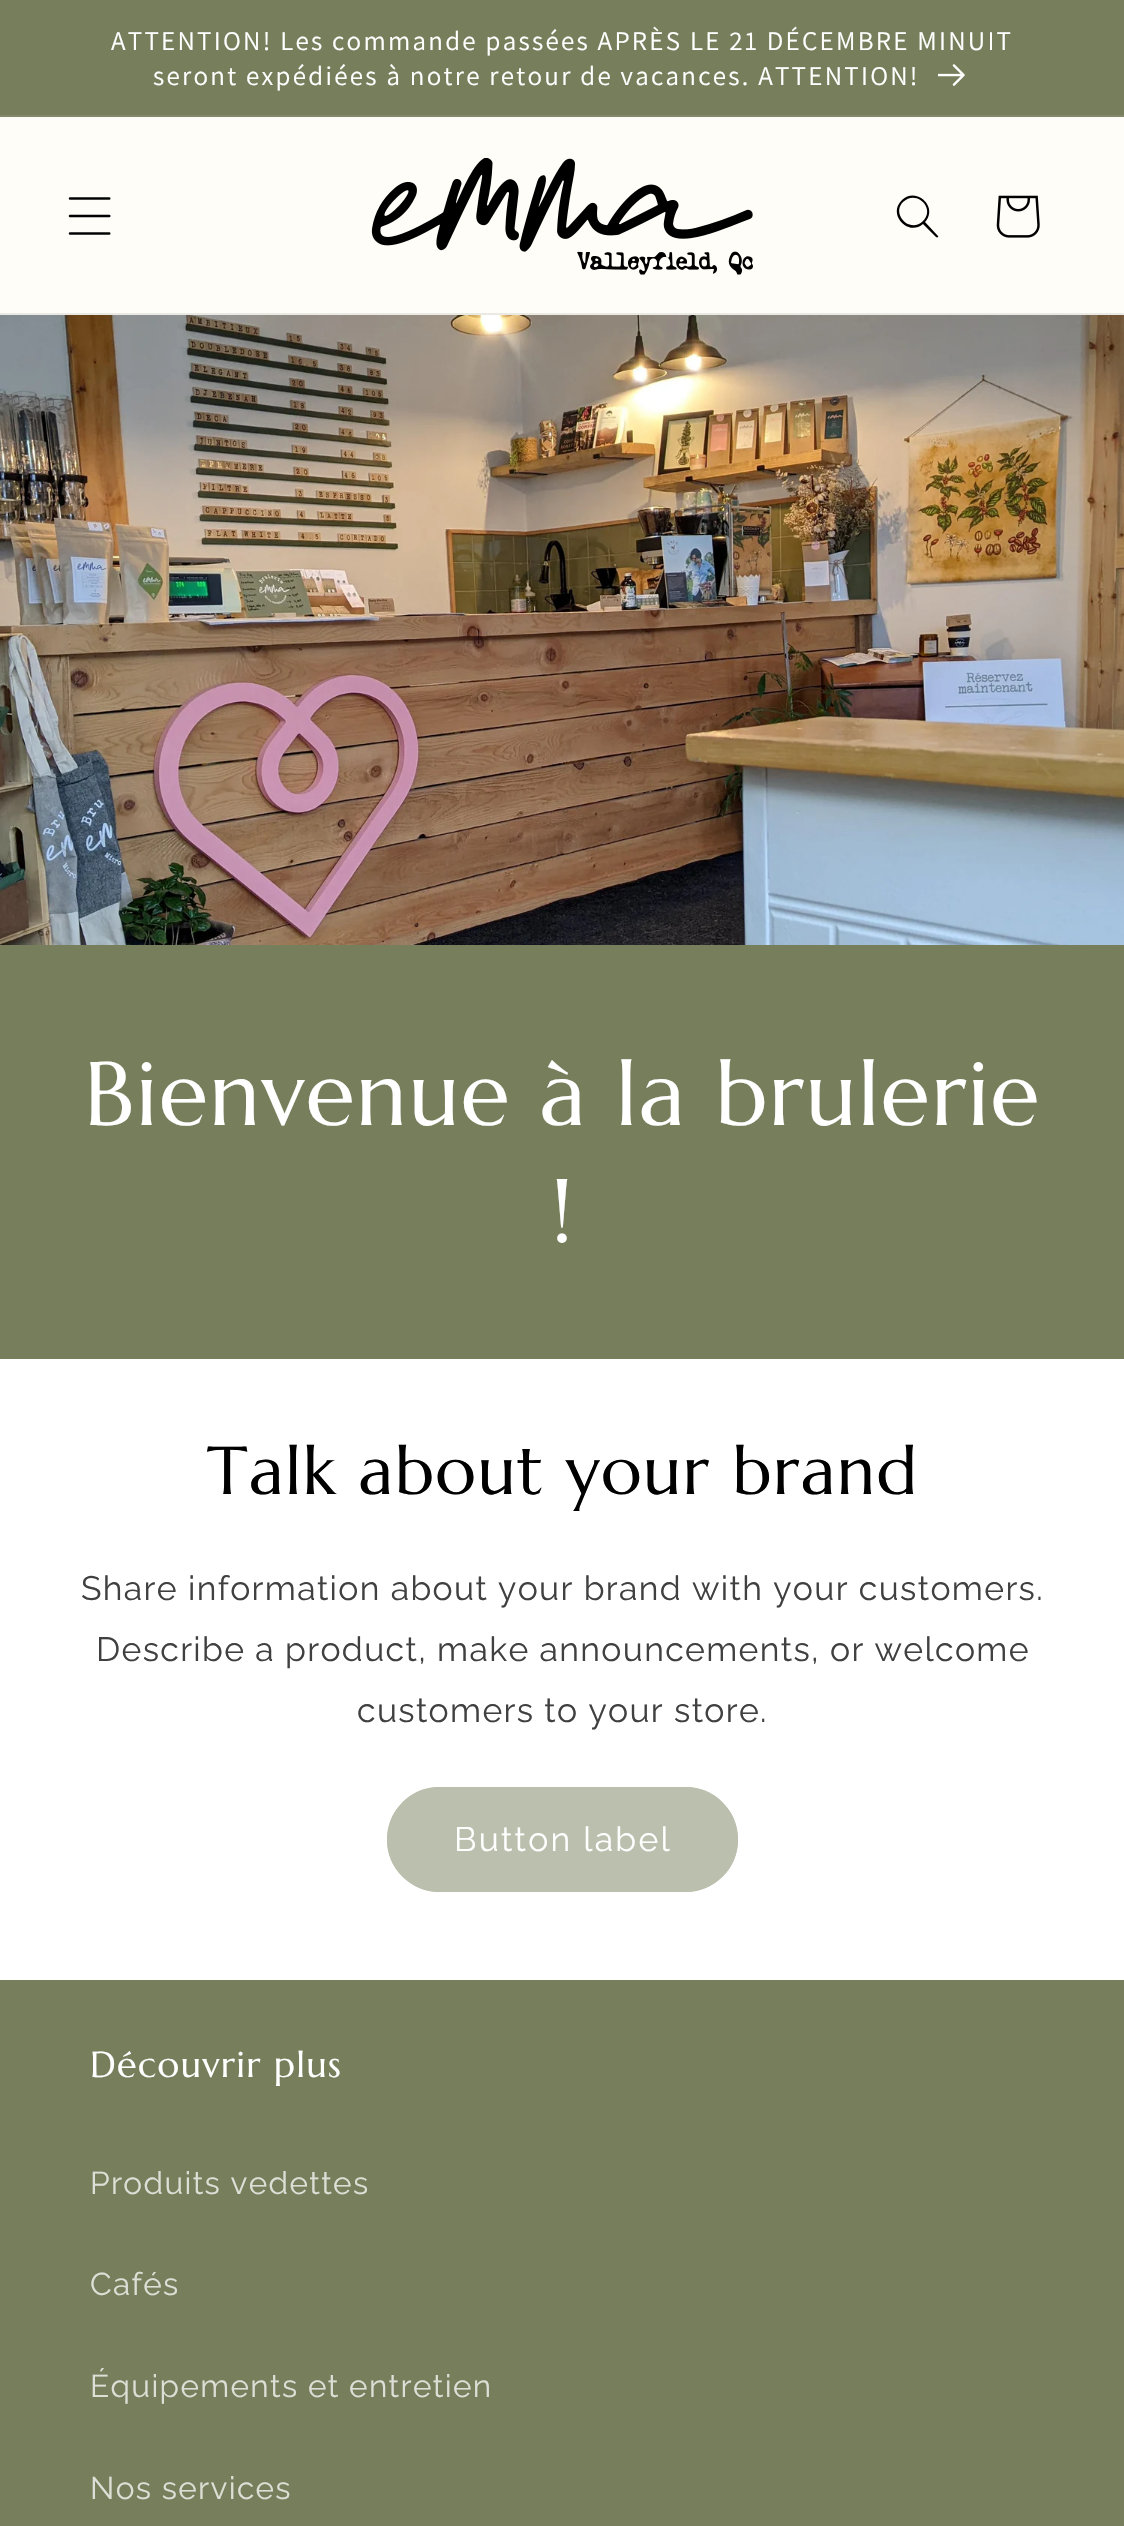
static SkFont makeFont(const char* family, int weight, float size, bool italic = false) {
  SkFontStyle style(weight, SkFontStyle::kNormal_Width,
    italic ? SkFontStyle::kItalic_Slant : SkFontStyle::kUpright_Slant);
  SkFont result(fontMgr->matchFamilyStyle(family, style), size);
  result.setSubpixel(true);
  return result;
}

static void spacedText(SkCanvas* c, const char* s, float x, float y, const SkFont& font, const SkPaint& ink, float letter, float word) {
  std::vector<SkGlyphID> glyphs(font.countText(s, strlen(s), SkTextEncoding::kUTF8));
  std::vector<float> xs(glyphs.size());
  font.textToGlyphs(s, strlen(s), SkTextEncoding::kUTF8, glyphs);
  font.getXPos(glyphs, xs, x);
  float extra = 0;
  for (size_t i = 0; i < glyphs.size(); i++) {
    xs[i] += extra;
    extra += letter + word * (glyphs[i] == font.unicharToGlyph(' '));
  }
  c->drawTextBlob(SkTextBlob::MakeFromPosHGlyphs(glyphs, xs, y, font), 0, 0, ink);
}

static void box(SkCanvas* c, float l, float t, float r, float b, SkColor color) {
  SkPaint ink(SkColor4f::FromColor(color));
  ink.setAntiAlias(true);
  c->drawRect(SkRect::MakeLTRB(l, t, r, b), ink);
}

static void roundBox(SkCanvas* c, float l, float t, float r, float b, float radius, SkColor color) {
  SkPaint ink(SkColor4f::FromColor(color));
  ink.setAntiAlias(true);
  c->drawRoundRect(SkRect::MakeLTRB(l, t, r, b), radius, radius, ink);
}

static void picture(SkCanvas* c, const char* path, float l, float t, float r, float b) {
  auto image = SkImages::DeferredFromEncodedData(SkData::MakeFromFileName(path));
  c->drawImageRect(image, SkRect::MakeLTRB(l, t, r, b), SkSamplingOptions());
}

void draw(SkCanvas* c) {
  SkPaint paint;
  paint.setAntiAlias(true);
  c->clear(0xffffffff);
  box(c, 0, 0, 1124, 115, 0xff777e5b);
  box(c, 0, 115, 1124, 117, 0xff828868);
  SkFont face1 = makeFont("Assistant", 400, 27);
  paint.setColor(0xffffffff);
  spacedText(c, "ATTENTION! Les commande passées APRÈS LE 21 DÉCEMBRE MINUIT", 111, 50, face1, paint, 2.25f, 0);
  spacedText(c, "seront expédiées à notre retour de vacances. ATTENTION!", 153, 85, face1, paint, 2.25f, 0);
  picture(c, "img_01.png", 938, 64, 965, 86);
  box(c, 0, 117, 1124, 313, 0xfffffdf8);
  box(c, 0, 313, 1124, 315, 0xffebe9e4);
  picture(c, "img_02.png", 68, 197, 111, 235);
  picture(c, "img_03.png", 371, 158, 753, 275);
  paint.setColor(0xff000000);
  c->drawPath(SkPathBuilder(SkPathFillType::kEvenOdd).moveTo(923, 221).cubicTo(910, 234, 891, 214, 903, 202).cubicTo(916, 189, 936, 208, 923, 221).moveTo(923, 224).cubicTo(908, 237, 887, 214, 902, 200).cubicTo(916, 186, 939, 207, 925, 222).lineTo(938, 236).cubicTo(939, 237, 937, 238, 936, 237).close().detach(), paint);
  picture(c, "img_04.png", 996, 195, 1040, 238);
  picture(c, "img_05.png", 0, 315, 1124, 945);
  box(c, 0, 945, 1124, 1359, 0xff777e5b);
  SkFont face2 = makeFont("Marcellus", 400, 90);
  paint.setColor(0xffffffff);
  spacedText(c, "Bienvenue à la brulerie", 84, 1125, face2, paint, 1.35f, 0);
  spacedText(c, "!", 551, 1242, face2, paint, 1.35f, 0);
  SkFont face3 = makeFont("Marcellus", 400, 67.5f);
  paint.setColor(0xff000000);
  spacedText(c, "Talk about your brand", 207, 1494, face3, paint, 1.35f, 0);
  SkFont face4 = makeFont("Raleway", 400, 33.75f);
  paint.setColor(0xff404040);
  spacedText(c, "Share information about your brand with your customers.", 81, 1600, face4, paint, 1.35f, 0);
  spacedText(c, "Describe a product, make announcements, or welcome", 96, 1661, face4, paint, 1.35f, 0);
  spacedText(c, "customers to your store.", 357, 1722, face4, paint, 1.35f, 0);
  roundBox(c, 387, 1787, 738, 1892, 52.5f, 0xffbbbfad);
  paint.setStyle(SkPaint::kStroke_Style);
  paint.setStrokeWidth(2);
  paint.setColor(0xffbbbfad);
  c->drawRoundRect(SkRect::MakeLTRB(388, 1788, 737, 1891), 51.5f, 51.5f, paint);
  paint.setStyle(SkPaint::kFill_Style);
  paint.setColor(0xffffffff);
  spacedText(c, "Button label", 454, 1851, face4, paint, 2.25f, 0);
  box(c, 0, 1980, 1124, 2526, 0xff777e5b);
  SkFont face5 = makeFont("Marcellus", 400, 36);
  spacedText(c, "Découvrir plus", 90, 2077, face5, paint, 1.35f, 0);
  SkFont face6 = makeFont("Raleway", 400, 31.5f);
  paint.setColor(0xffdddfd6);
  spacedText(c, "Produits vedettes", 90, 2194, face6, paint, 1.35f, 0);
  spacedText(c, "Cafés", 90, 2295, face6, paint, 1.35f, 0);
  spacedText(c, "Équipements et entretien", 90, 2397, face6, paint, 1.35f, 0);
  spacedText(c, "Nos services", 90, 2499, face6, paint, 1.35f, 0);
}
